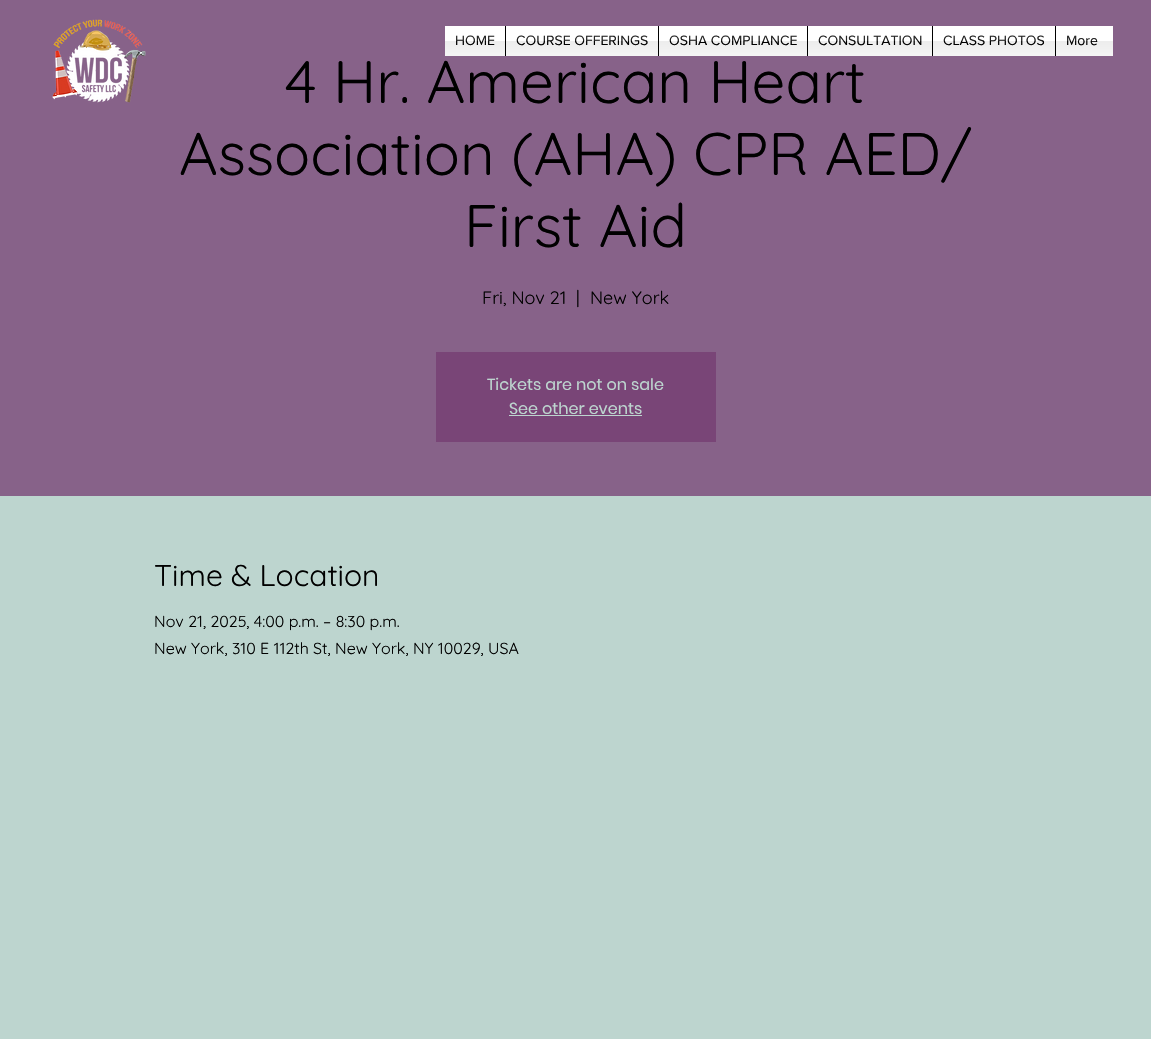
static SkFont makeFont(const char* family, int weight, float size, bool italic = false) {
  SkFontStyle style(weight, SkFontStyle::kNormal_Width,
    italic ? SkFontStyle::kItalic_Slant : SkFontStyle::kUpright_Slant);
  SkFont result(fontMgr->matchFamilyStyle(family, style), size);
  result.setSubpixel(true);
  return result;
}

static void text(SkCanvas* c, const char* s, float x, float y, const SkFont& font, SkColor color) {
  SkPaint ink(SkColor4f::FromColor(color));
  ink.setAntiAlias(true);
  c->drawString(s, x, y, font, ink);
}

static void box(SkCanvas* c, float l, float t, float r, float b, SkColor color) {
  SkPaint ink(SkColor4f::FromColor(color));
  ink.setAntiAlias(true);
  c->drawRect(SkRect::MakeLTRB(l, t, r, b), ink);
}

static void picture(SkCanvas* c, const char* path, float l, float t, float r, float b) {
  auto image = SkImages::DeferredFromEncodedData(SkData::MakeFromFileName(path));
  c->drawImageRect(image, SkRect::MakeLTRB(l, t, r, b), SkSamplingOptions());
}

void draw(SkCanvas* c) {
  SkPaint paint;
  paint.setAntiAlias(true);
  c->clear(0xffbdd5cf);
  box(c, 0, 0, 1151, 496, 0xff876289);
  picture(c, "img_01.png", 52, 19, 146, 103);
  box(c, 1056, 26, 1113, 56, 0xffffffff);
  picture(c, "img_02.png", 1108, 41, 1113, 56);
  box(c, 445, 26, 505, 56, 0xffffffff);
  SkFont face1 = makeFont("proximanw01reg", 400, 14);
  text(c, "HOME", 455, 45, face1, 0xff000000);
  picture(c, "img_03.png", 445, 35, 505, 56);
  box(c, 506, 26, 658, 56, 0xffffffff);
  box(c, 505, 26, 506, 56, 0xff000000);
  text(c, "COURSE OFFERINGS", 516, 45, face1, 0xff000000);
  picture(c, "img_04.png", 506, 35, 658, 56);
  box(c, 659, 26, 807, 56, 0xffffffff);
  box(c, 658, 26, 659, 56, 0xff000000);
  text(c, "OSHA COMPLIANCE", 669, 45, face1, 0xff000000);
  picture(c, "img_05.png", 659, 35, 807, 56);
  box(c, 808, 26, 932, 56, 0xffffffff);
  box(c, 807, 26, 808, 56, 0xff000000);
  text(c, "CONSULTATION", 818, 45, face1, 0xff000000);
  picture(c, "img_06.png", 808, 35, 932, 56);
  box(c, 933, 26, 1055, 56, 0xffffffff);
  box(c, 932, 26, 933, 56, 0xff000000);
  text(c, "CLASS PHOTOS", 943, 45, face1, 0xff000000);
  picture(c, "img_07.png", 933, 35, 1055, 56);
  box(c, 1055, 26, 1056, 56, 0xff000000);
  text(c, "More", 1066, 45, face1, 0xff000000);
  picture(c, "img_08.png", 1056, 35, 1108, 56);
  SkFont face2 = makeFont("Quicksand", 400, 60);
  text(c, "4 Hr. American Heart", 285, 103, face2, 0xff000000);
  text(c, "Association (AHA) CPR AED/", 179, 175, face2, 0xff000000);
  text(c, "First Aid", 464, 247, face2, 0xff000000);
  SkFont face3 = makeFont("Quicksand", 400, 18);
  text(c, "Fri, Nov 21", 482, 304, face3, 0xff000000);
  text(c, "|", 576, 304, face3, 0xff000000);
  text(c, "New York", 590, 304, face3, 0xff000000);
  box(c, 436, 352, 716, 442, 0xff794577);
  SkFont face4 = makeFont("Poppins", 400, 16);
  text(c, "Tickets are not on sale", 487, 390, face4, 0xffbdd5cf);
  text(c, "See other events", 509, 414, face4, 0xffbdd5cf);
  box(c, 509, 415, 642, 416, 0xffbdd5cf);
  SkFont face5 = makeFont("Quicksand", 400, 30);
  text(c, "Time & Location", 154, 586, face5, 0xff000000);
  SkFont face6 = makeFont("Quicksand", 400, 16);
  text(c, "Nov 21, 2025, 4:00 p.m. – 8:30 p.m.", 154, 627, face6, 0xff000000);
  text(c, "New York, 310 E 112th St, New York, NY 10029, USA", 154, 654, face6, 0xff000000);
}
